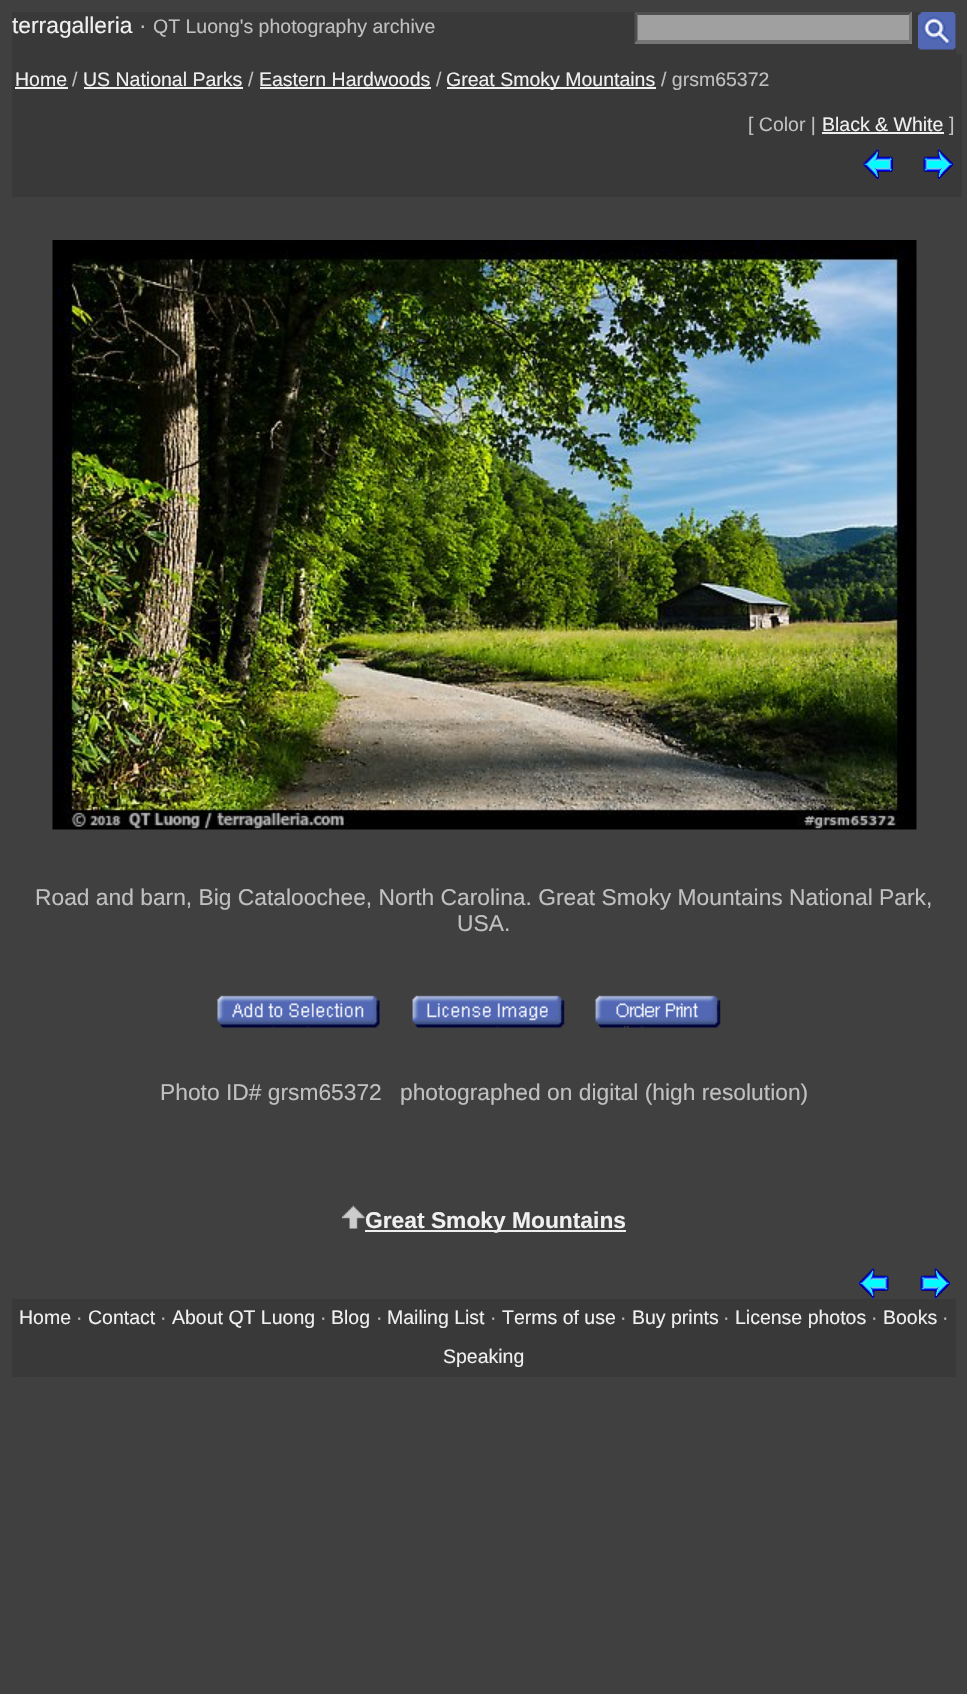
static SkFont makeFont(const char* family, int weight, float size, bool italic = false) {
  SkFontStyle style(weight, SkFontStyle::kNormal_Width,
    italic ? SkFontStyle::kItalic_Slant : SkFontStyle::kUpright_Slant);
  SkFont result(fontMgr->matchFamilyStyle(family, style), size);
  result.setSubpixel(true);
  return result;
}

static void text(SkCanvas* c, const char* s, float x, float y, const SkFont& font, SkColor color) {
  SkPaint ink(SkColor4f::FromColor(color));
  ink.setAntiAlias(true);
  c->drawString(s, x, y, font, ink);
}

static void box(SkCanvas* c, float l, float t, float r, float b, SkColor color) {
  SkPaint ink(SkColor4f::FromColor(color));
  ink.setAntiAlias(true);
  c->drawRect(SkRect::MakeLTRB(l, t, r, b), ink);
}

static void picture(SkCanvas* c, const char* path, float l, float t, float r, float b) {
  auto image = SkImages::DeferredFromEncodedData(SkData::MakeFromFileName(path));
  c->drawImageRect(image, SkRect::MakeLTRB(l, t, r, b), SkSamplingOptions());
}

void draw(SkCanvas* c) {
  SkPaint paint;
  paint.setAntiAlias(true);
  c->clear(0xff404040);
  box(c, 12, 12, 956, 54, 0xff393939);
  SkFont face1 = makeFont("Liberation Sans", 400, 22.8f);
  text(c, "terragalleria", 12, 33, face1, 0xfff0f0f0);
  text(c, "·", 139, 33, face1, 0xffc0c0c0);
  SkFont face2 = makeFont("Liberation Sans", 400, 19.5f);
  text(c, "QT Luong's photography archive", 153, 33, face2, 0xffc0c0c0);
  box(c, 635, 12, 912, 44, 0xffa0a0a0);
  paint.setColor(0xff4f4f4f);
  c->drawPath(SkPathBuilder().moveTo(634, 12).lineTo(912, 12).lineTo(909, 15).lineTo(638, 15).close().detach(), paint);
  paint.setColor(0xff767676);
  c->drawPath(SkPathBuilder().moveTo(912, 12).lineTo(912, 43.5f).lineTo(909, 40.5f).lineTo(909, 15).close().detach(), paint);
  c->drawPath(SkPathBuilder().moveTo(912, 44).lineTo(634, 44).lineTo(638, 40).lineTo(909, 40).close().detach(), paint);
  paint.setColor(0xff4f4f4f);
  c->drawPath(SkPathBuilder().moveTo(634.5f, 43.5f).lineTo(634.5f, 12).lineTo(637.5f, 15).lineTo(637.5f, 40.5f).close().detach(), paint);
  picture(c, "img_01.png", 918, 12, 956, 50);
  box(c, 12, 54, 962, 197, 0xff393939);
  text(c, "Home", 15, 86, face2, 0xfff0f0f0);
  box(c, 15, 87, 68, 89, 0xfff0f0f0);
  text(c, "/", 72, 86, face2, 0xffc0c0c0);
  text(c, "US National Parks", 83, 86, face2, 0xfff0f0f0);
  box(c, 84, 87, 243, 89, 0xfff0f0f0);
  text(c, "/", 248, 86, face2, 0xffc0c0c0);
  text(c, "Eastern Hardwoods", 259, 86, face2, 0xfff0f0f0);
  box(c, 260, 87, 431, 89, 0xfff0f0f0);
  text(c, "/", 436, 86, face2, 0xffc0c0c0);
  box(c, 447, 87, 656, 89, 0xfff0f0f0);
  text(c, "Great Smoky Mountains", 446, 86, face2, 0xfff0f0f0);
  text(c, "/ grsm65372", 661, 86, face2, 0xffc0c0c0);
  text(c, "[ Color |", 748, 131, face2, 0xffc0c0c0);
  text(c, "Black & White", 822, 131, face2, 0xfff0f0f0);
  box(c, 822, 132, 944, 134, 0xfff0f0f0);
  text(c, "]", 949, 131, face2, 0xffc0c0c0);
  picture(c, "img_02.png", 863, 149, 893, 179);
  picture(c, "img_03.png", 923, 149, 953, 179);
  picture(c, "img_04.png", 52, 240, 917, 830);
  text(c, "Road and barn, Big Cataloochee, North Carolina. Great Smoky Mountains National Park,", 35, 905, face1, 0xffc0c0c0);
  text(c, "USA.", 457, 931, face1, 0xffc0c0c0);
  picture(c, "img_05.png", 217, 995, 380, 1028);
  picture(c, "img_06.png", 412, 995, 565, 1028);
  picture(c, "img_07.png", 595, 995, 721, 1028);
  text(c, "Photo ID# grsm65372", 160, 1100, face1, 0xffc0c0c0);
  text(c, "photographed on digital (high resolution)", 400, 1100, face1, 0xffc0c0c0);
  picture(c, "img_08.png", 342, 1205, 365, 1229);
  box(c, 365, 1230, 626, 1232, 0xfff0f0f0);
  SkFont face3 = makeFont("Liberation Sans", 700, 22.8f);
  text(c, "Great Smoky Mountains", 365, 1228, face3, 0xfff0f0f0);
  picture(c, "img_09.png", 859, 1268, 889, 1298);
  picture(c, "img_10.png", 920, 1268, 950, 1298);
  box(c, 12, 1299, 956, 1377, 0xff393939);
  text(c, "Home", 19, 1324, face2, 0xfff0f0f0);
  text(c, "·", 76, 1324, face2, 0xffc0c0c0);
  text(c, "Contact", 88, 1324, face2, 0xfff0f0f0);
  text(c, "·", 160, 1324, face2, 0xffc0c0c0);
  text(c, "About QT Luong", 172, 1324, face2, 0xfff0f0f0);
  text(c, "·", 320, 1324, face2, 0xffc0c0c0);
  text(c, "Blog", 331, 1324, face2, 0xfff0f0f0);
  text(c, "·", 376, 1324, face2, 0xffc0c0c0);
  text(c, "Mailing List", 387, 1324, face2, 0xfff0f0f0);
  text(c, "·", 490, 1324, face2, 0xffc0c0c0);
  text(c, "Terms of use", 502, 1324, face2, 0xfff0f0f0);
  text(c, "·", 620, 1324, face2, 0xffc0c0c0);
  text(c, "Buy prints", 632, 1324, face2, 0xfff0f0f0);
  text(c, "·", 723, 1324, face2, 0xffc0c0c0);
  text(c, "License photos", 735, 1324, face2, 0xfff0f0f0);
  text(c, "·", 871, 1324, face2, 0xffc0c0c0);
  text(c, "Books", 883, 1324, face2, 0xfff0f0f0);
  text(c, "·", 942, 1324, face2, 0xffc0c0c0);
  text(c, "Speaking", 443, 1363, face2, 0xfff0f0f0);
}
